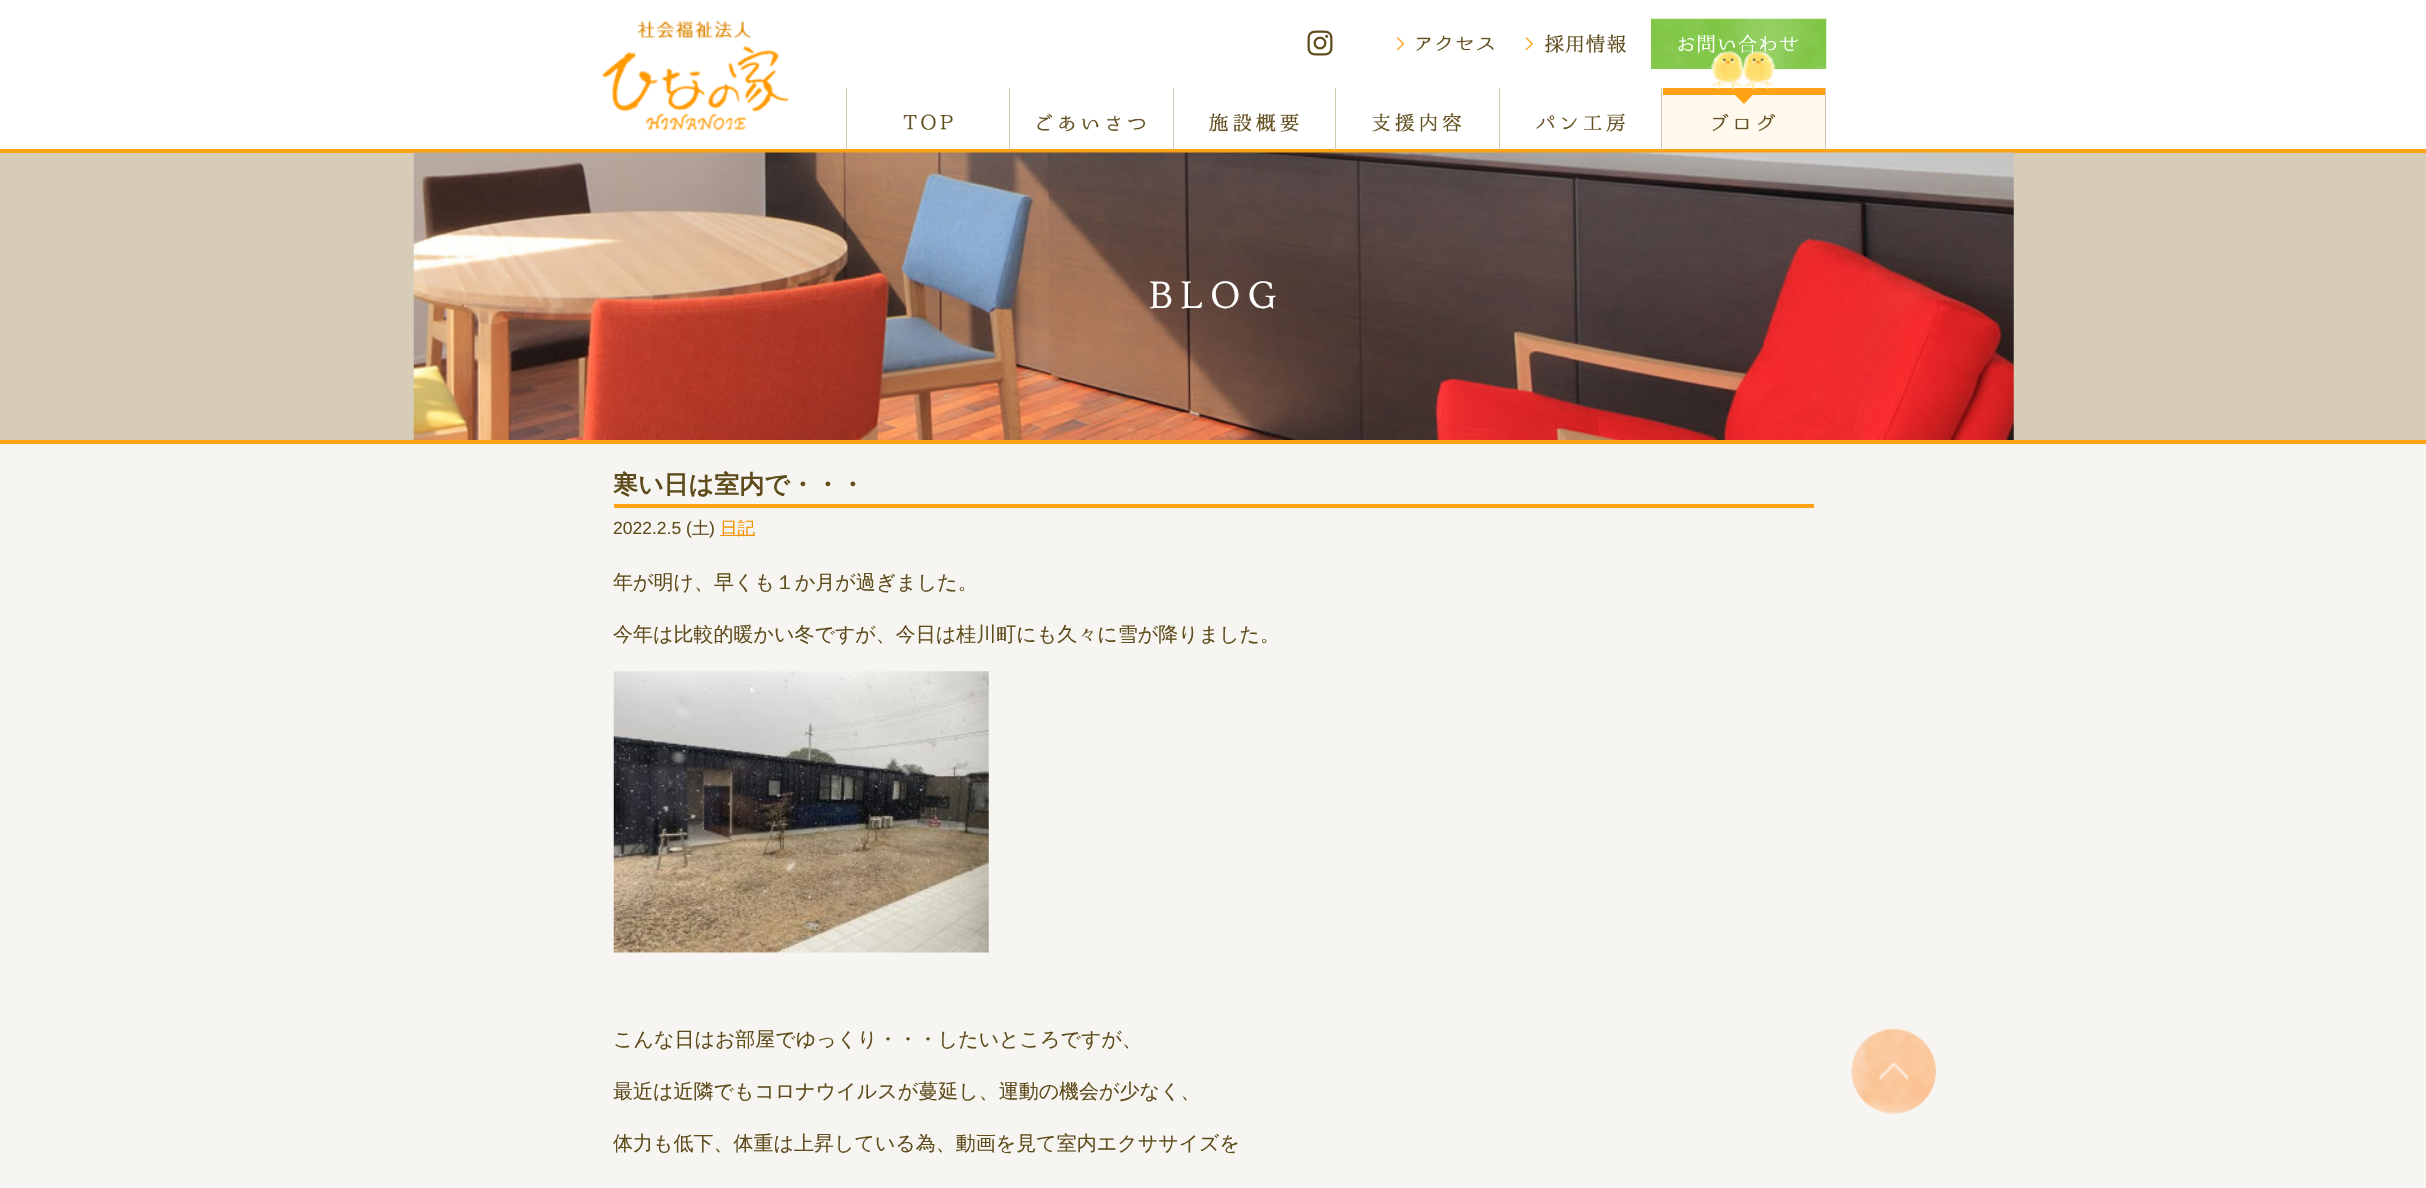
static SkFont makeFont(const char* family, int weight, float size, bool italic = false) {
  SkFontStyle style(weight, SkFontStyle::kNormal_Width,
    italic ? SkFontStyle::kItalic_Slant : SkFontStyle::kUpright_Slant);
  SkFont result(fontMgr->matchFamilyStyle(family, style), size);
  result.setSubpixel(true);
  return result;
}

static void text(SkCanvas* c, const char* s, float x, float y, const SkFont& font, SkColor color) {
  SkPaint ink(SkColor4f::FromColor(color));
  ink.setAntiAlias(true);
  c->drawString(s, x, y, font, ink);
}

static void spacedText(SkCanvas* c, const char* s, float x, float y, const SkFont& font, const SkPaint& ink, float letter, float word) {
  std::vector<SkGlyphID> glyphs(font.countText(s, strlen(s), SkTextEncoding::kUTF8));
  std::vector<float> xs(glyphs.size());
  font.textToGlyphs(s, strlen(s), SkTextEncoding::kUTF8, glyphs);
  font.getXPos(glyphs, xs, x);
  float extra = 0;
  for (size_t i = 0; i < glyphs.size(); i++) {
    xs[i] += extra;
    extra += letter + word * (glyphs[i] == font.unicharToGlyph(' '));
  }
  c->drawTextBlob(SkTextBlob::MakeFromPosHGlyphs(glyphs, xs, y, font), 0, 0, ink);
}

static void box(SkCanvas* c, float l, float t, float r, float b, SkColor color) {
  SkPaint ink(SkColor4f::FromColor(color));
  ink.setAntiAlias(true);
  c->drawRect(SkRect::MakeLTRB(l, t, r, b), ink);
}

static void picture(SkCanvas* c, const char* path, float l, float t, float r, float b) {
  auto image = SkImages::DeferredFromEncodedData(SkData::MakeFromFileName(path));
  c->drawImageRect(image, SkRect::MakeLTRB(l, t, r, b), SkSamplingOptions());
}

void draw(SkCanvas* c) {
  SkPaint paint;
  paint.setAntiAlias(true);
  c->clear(0xfff7f5f1);
  box(c, 0, 0, 2426, 149, 0xffffffff);
  picture(c, "img_01.png", 602, 21, 789, 131);
  picture(c, "img_02.png", 1307, 30, 1333, 56);
  picture(c, "img_03.png", 1396, 37, 1405, 50);
  picture(c, "img_04.png", 1416, 35, 1494, 52);
  picture(c, "img_05.png", 1525, 37, 1533, 50);
  picture(c, "img_06.png", 1545, 34, 1626, 53);
  box(c, 1651, 19, 1826, 69, 0xff82c948);
  picture(c, "img_07.png", 1651, 18, 1827, 69);
  picture(c, "img_08.png", 1678, 34, 1798, 54);
  box(c, 0, 149, 2426, 153, 0xffffa216);
  box(c, 846, 88, 847, 150, 0xffd2c8b1);
  picture(c, "img_09.png", 903, 114, 953, 130);
  box(c, 1009, 88, 1010, 150, 0xffd2c8b1);
  picture(c, "img_10.png", 1037, 114, 1145, 132);
  box(c, 1173, 88, 1174, 150, 0xffd2c8b1);
  picture(c, "img_11.png", 1209, 113, 1299, 132);
  box(c, 1335, 88, 1336, 150, 0xffd2c8b1);
  picture(c, "img_12.png", 1372, 113, 1462, 132);
  box(c, 1499, 88, 1500, 150, 0xffd2c8b1);
  picture(c, "img_13.png", 1536, 113, 1625, 132);
  box(c, 1825, 88, 1826, 150, 0xffd2c8b1);
  box(c, 1661, 88, 1662, 150, 0xffd2c8b1);
  box(c, 1663, 88, 1825, 95, 0xffffa216);
  picture(c, "img_14.png", 1710, 50, 1776, 90);
  box(c, 1663, 95, 1825, 149, 0xfffff8ec);
  paint.setColor(0xffffa216);
  c->drawPath(SkPathBuilder().moveTo(1735, 95).lineTo(1752.5f, 95).lineTo(1744, 104).close().detach(), paint);
  picture(c, "img_15.png", 1712, 113, 1775, 132);
  box(c, 0, 440, 2426, 444, 0xffffa216);
  box(c, 0, 153, 2426, 440, 0xffd6ccb8);
  picture(c, "img_16.png", 413, 152, 2014, 440);
  SkFont face1 = makeFont("Lustria", 400, 37.5f);
  paint.setColor(0xffffffff);
  spacedText(c, "BLOG", 1149, 308, face1, paint, 7.5f, 0);
  box(c, 614, 504, 1814, 508, 0xffffa216);
  SkFont face2 = makeFont("WenQuanYi Zen Hei", 700, 25);
  text(c, "寒い日は室内で・・・", 613, 493, face2, 0xff5f4c1d);
  SkFont face3 = makeFont("Liberation Sans", 400, 17.5f);
  text(c, "2022.2.5 (", 613, 534, face3, 0xff5f4c1d);
  SkFont face4 = makeFont("WenQuanYi Zen Hei", 500, 17.5f);
  text(c, "土", 692, 534, face4, 0xff5f4c1d);
  text(c, ")", 709, 534, face3, 0xff5f4c1d);
  box(c, 720, 535, 755, 536, 0xfff29200);
  text(c, "日記", 720, 534, face4, 0xfff29200);
  SkFont face5 = makeFont("WenQuanYi Zen Hei", 500, 20);
  text(c, "年が明け、早くも１か月が過ぎました。", 613, 589, face5, 0xff5f4c1d);
  text(c, "今年は比較的暖かい冬ですが、今日は桂川町にも久々に雪が降りました。", 613, 641, face5, 0xff5f4c1d);
  picture(c, "img_17.png", 613, 671, 989, 953);
  text(c, "こんな日はお部屋でゆっくり・・・したいところですが、", 613, 1046, face5, 0xff5f4c1d);
  text(c, "最近は近隣でもコロナウイルスが蔓延し、運動の機会が少なく、", 613, 1098, face5, 0xff5f4c1d);
  text(c, "体力も低下、体重は上昇している為、動画を見て室内エクササイズを", 613, 1150, face5, 0xff5f4c1d);
  picture(c, "img_18.png", 1851, 1028, 1937, 1114);
  paint.setColor(0x80ffffff);
  c->drawPath(SkPathBuilder().moveTo(1908, 1076).lineTo(1894, 1062).lineTo(1879.5f, 1076).lineTo(1879.5f, 1080.5f).lineTo(1894, 1066).lineTo(1908, 1080.5f).close().detach(), paint);
}
